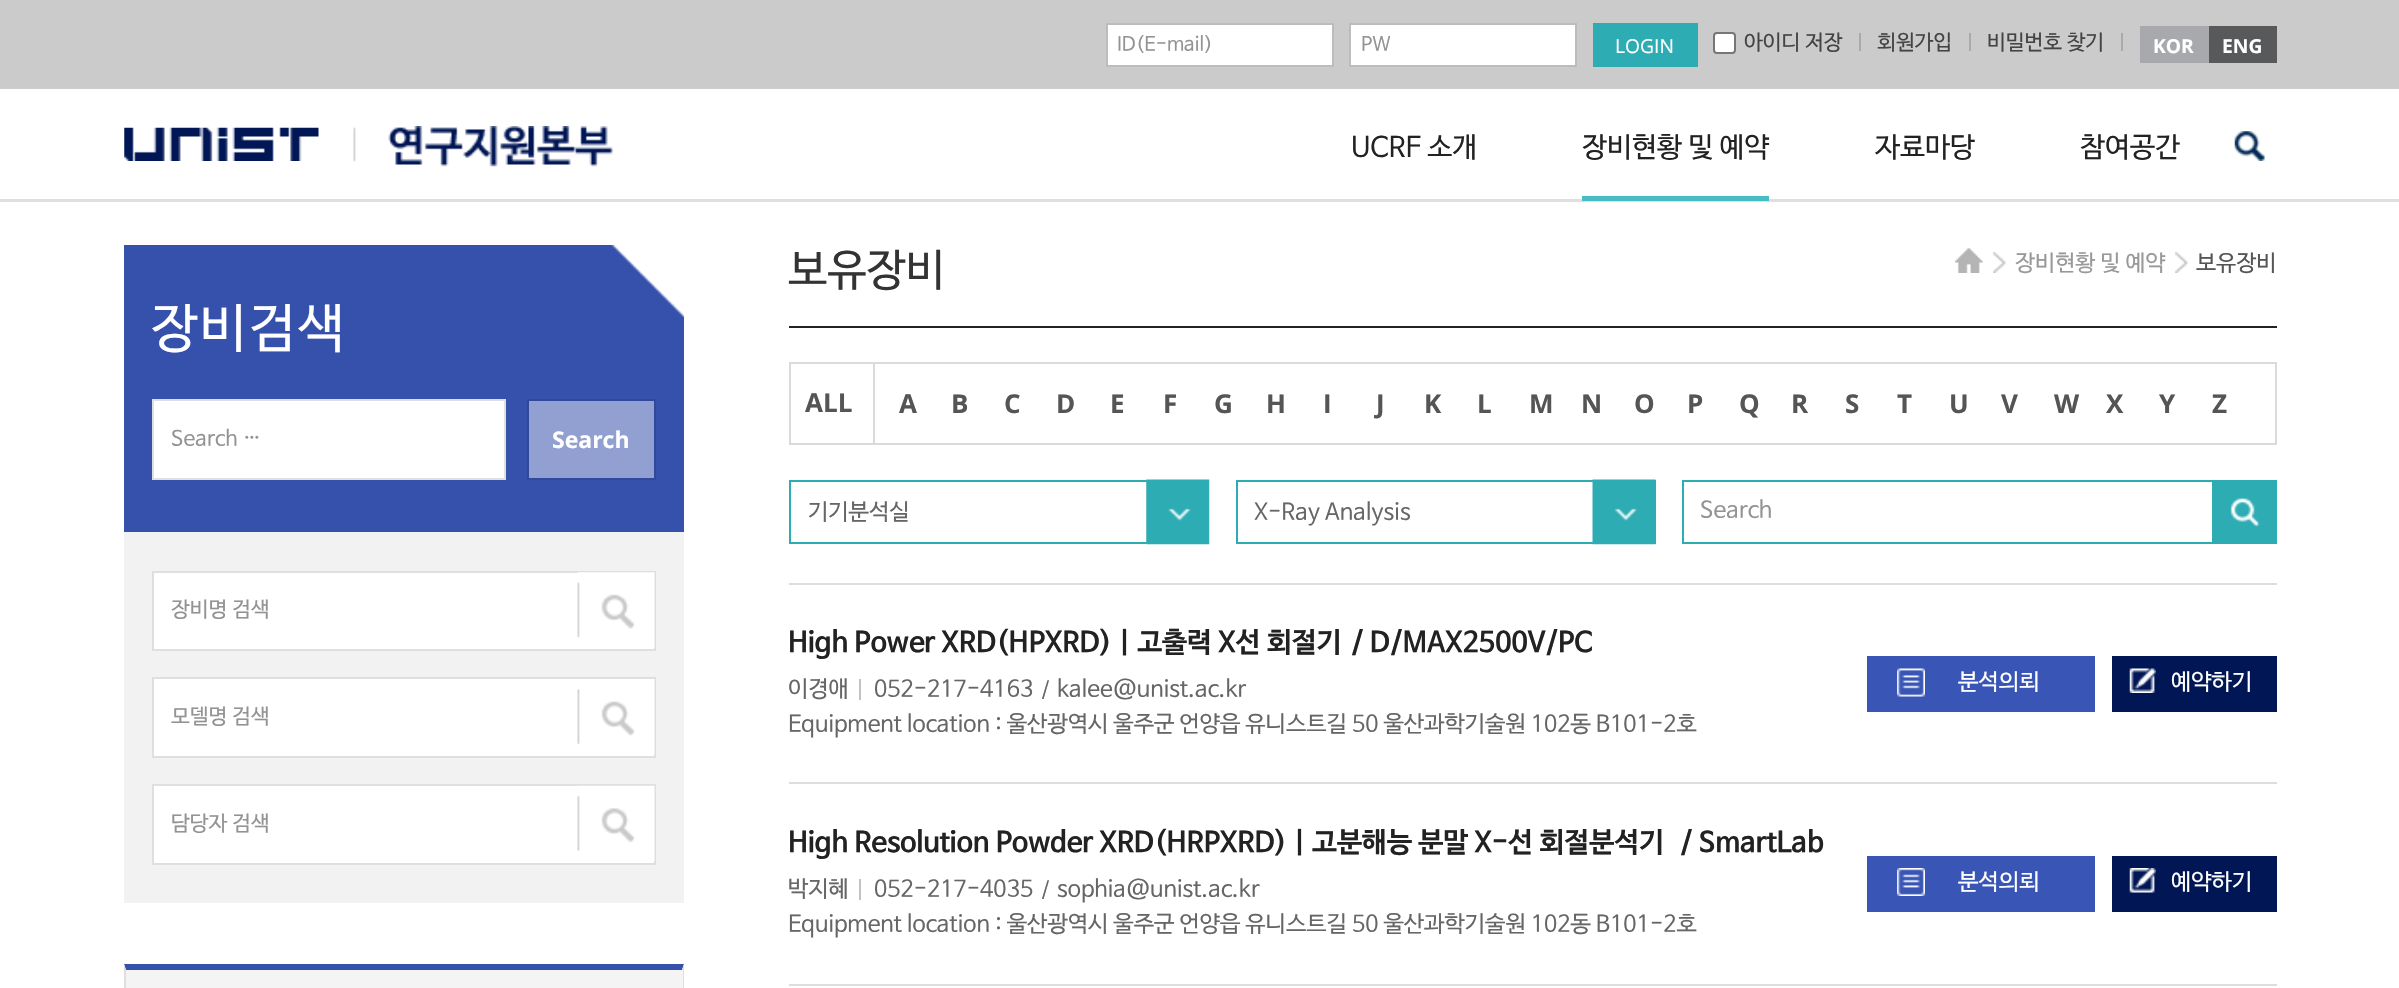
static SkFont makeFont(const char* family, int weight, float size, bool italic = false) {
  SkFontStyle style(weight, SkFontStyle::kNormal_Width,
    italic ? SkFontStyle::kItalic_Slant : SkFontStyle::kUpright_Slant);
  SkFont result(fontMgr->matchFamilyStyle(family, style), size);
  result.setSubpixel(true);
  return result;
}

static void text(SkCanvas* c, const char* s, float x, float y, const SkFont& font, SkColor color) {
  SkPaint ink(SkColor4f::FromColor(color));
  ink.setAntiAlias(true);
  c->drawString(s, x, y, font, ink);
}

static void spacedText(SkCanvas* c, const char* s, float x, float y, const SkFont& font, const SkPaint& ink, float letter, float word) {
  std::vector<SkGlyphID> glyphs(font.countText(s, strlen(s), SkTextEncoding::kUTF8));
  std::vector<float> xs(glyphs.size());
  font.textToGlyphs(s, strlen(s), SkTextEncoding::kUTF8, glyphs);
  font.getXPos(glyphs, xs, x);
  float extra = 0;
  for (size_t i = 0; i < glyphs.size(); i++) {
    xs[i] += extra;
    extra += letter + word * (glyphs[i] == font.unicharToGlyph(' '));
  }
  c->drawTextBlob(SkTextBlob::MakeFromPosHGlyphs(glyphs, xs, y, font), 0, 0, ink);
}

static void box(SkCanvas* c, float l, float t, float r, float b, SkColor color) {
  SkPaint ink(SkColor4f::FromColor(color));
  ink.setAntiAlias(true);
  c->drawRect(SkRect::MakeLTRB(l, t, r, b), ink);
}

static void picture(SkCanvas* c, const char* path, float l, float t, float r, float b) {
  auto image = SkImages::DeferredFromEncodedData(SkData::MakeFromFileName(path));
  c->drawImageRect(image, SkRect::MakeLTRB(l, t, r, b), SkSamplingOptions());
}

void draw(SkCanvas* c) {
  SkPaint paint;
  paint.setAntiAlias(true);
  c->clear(0xffffffff);
  box(c, 0, 199, 2399, 202, 0xffdfdfdf);
  box(c, 0, 0, 2399, 89, 0xffcbcbcb);
  paint.setColor(0xffffffff);
  c->drawRect(SkRect::MakeLTRB(1107, 24, 1333, 66), paint);
  paint.setStyle(SkPaint::kStroke_Style);
  paint.setStrokeWidth(2);
  paint.setColor(0xffbcbcbc);
  c->drawRect(SkRect::MakeLTRB(1107, 24, 1333, 66), paint);
  SkFont face1 = makeFont("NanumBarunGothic", 400, 19.25f);
  text(c, "ID(E-mail)", 1117, 50, face1, 0xff939393);
  paint.setStyle(SkPaint::kFill_Style);
  paint.setColor(0xffffffff);
  c->drawRect(SkRect::MakeLTRB(1350, 24, 1576, 66), paint);
  paint.setStyle(SkPaint::kStroke_Style);
  paint.setColor(0xffbcbcbc);
  c->drawRect(SkRect::MakeLTRB(1350, 24, 1576, 66), paint);
  text(c, "PW", 1361, 50, face1, 0xff939393);
  box(c, 1593, 23, 1698, 67, 0xff2eacb4);
  SkFont face2 = makeFont("Open Sans", 400, 19.25f);
  text(c, "LOGIN", 1615, 53, face2, 0xffffffff);
  paint.setStyle(SkPaint::kFill_Style);
  paint.setColor(0xffffffff);
  c->drawRoundRect(SkRect::MakeLTRB(1714, 33, 1735, 53), 3, 3, paint);
  paint.setStyle(SkPaint::kStroke_Style);
  paint.setColor(0xff767676);
  c->drawRoundRect(SkRect::MakeLTRB(1714, 33, 1735, 53), 3, 3, paint);
  SkFont face3 = makeFont("NanumBarunGothic", 400, 21);
  text(c, "아이디 저장", 1744, 49, face3, 0xff444444);
  box(c, 1859, 33, 1861, 51, 0xffaaaaaa);
  text(c, "회원가입", 1877, 49, face3, 0xff444444);
  box(c, 1969, 33, 1971, 51, 0xffaaaaaa);
  text(c, "비밀번호 찾기", 1987, 49, face3, 0xff444444);
  box(c, 2121, 33, 2123, 51, 0xffaaaaaa);
  box(c, 2140, 26, 2209, 63, 0xffa7a9ac);
  SkFont face4 = makeFont("Open Sans", 700, 19.25f);
  text(c, "KOR", 2153, 53, face4, 0xffffffff);
  box(c, 2209, 26, 2277, 63, 0xff57595b);
  text(c, "ENG", 2222, 53, face4, 0xffffffff);
  picture(c, "img_01.png", 124, 127, 319, 161);
  picture(c, "img_02.png", 353, 126, 613, 167);
  SkFont face5 = makeFont("NanumBarunGothic", 400, 28);
  text(c, "UCRF 소개", 1351, 156, face5, 0xff222222);
  box(c, 1582, 196, 1769, 201, 0xff47bcc3);
  text(c, "장비현황 및 예약", 1582, 156, face5, 0xff222222);
  text(c, "자료마당", 1875, 156, face5, 0xff222222);
  text(c, "참여공간", 2080, 156, face5, 0xff222222);
  picture(c, "img_03.png", 2234, 131, 2265, 161);
  box(c, 124, 245, 684, 532, 0xff3651ab);
  picture(c, "img_04.png", 612, 245, 684, 317);
  SkFont face6 = makeFont("NanumBarunGothic", 400, 52.5f);
  paint.setStyle(SkPaint::kFill_Style);
  paint.setColor(0xffffffff);
  spacedText(c, "장비검색", 151, 345, face6, paint, 2, 0);
  c->drawRect(SkRect::MakeLTRB(153, 400, 505, 479), paint);
  paint.setStyle(SkPaint::kStroke_Style);
  paint.setColor(0xffdfdfdf);
  c->drawRect(SkRect::MakeLTRB(153, 400, 505, 479), paint);
  c->save();
  c->clipRect(SkRect::MakeLTRB(172, 427, 480, 452));
  text(c, "Search …", 171, 445, face3, 0xff939393);
  c->restore();
  paint.setStyle(SkPaint::kFill_Style);
  paint.setColor(0xff919fd1);
  c->drawRect(SkRect::MakeLTRB(528, 400, 655, 479), paint);
  paint.setStyle(SkPaint::kStroke_Style);
  paint.setColor(0xff30499f);
  c->drawRect(SkRect::MakeLTRB(528, 400, 655, 479), paint);
  SkFont face7 = makeFont("Open Sans", 700, 23);
  text(c, "Search", 552, 448, face7, 0xffffffff);
  box(c, 124, 532, 684, 903, 0xfff2f2f2);
  paint.setStyle(SkPaint::kFill_Style);
  paint.setColor(0xffffffff);
  c->drawRect(SkRect::MakeLTRB(153, 572, 655, 650), paint);
  paint.setStyle(SkPaint::kStroke_Style);
  paint.setColor(0xffdfdfdf);
  c->drawRect(SkRect::MakeLTRB(153, 572, 655, 650), paint);
  text(c, "장비명 검색", 171, 616, face3, 0xff939393);
  picture(c, "img_05.png", 577, 572, 655, 648);
  paint.setStyle(SkPaint::kFill_Style);
  paint.setColor(0xffffffff);
  c->drawRect(SkRect::MakeLTRB(153, 678, 655, 757), paint);
  paint.setStyle(SkPaint::kStroke_Style);
  paint.setColor(0xffdfdfdf);
  c->drawRect(SkRect::MakeLTRB(153, 678, 655, 757), paint);
  text(c, "모델명 검색", 171, 723, face3, 0xff939393);
  picture(c, "img_06.png", 577, 679, 655, 755);
  paint.setStyle(SkPaint::kFill_Style);
  paint.setColor(0xffffffff);
  c->drawRect(SkRect::MakeLTRB(153, 785, 655, 864), paint);
  paint.setStyle(SkPaint::kStroke_Style);
  paint.setColor(0xffdfdfdf);
  c->drawRect(SkRect::MakeLTRB(153, 785, 655, 864), paint);
  text(c, "담당자 검색", 171, 830, face3, 0xff939393);
  picture(c, "img_07.png", 577, 785, 655, 861);
  paint.setStyle(SkPaint::kFill_Style);
  paint.setColor(0xff3651ab);
  c->drawPath(SkPathBuilder().moveTo(124, 964).lineTo(684, 964).lineTo(682, 970).lineTo(126, 970).close().detach(), paint);
  paint.setColor(0xffdfdfdf);
  c->drawPath(SkPathBuilder().moveTo(684, 964).lineTo(684, 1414).lineTo(682, 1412).lineTo(682, 970).close().detach(), paint);
  c->drawPath(SkPathBuilder().moveTo(124, 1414).lineTo(124, 964).lineTo(126, 970).lineTo(126, 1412).close().detach(), paint);
  box(c, 126, 970, 683, 988, 0xfff4f4f4);
  box(c, 789, 326, 2277, 328, 0xff222222);
  SkFont face8 = makeFont("NanumBarunGothic", 400, 44);
  text(c, "보유장비", 788, 284, face8, 0xff333333);
  paint.setStyle(SkPaint::kStroke_Style);
  paint.setColor(0xffdadada);
  c->drawRect(SkRect::MakeLTRB(790, 363, 2276, 444), paint);
  box(c, 873, 364, 875, 443, 0xffdadada);
  SkFont face9 = makeFont("Open Sans", 700, 26);
  text(c, "ALL", 805, 412, face9, 0xff555555);
  text(c, "A", 899, 413, face9, 0xff555555);
  text(c, "B", 951, 413, face9, 0xff555555);
  text(c, "C", 1004, 413, face9, 0xff555555);
  text(c, "D", 1056, 413, face9, 0xff555555);
  text(c, "E", 1110, 413, face9, 0xff555555);
  text(c, "F", 1163, 413, face9, 0xff555555);
  text(c, "G", 1214, 413, face9, 0xff555555);
  text(c, "H", 1266, 413, face9, 0xff555555);
  text(c, "I", 1323, 413, face9, 0xff555555);
  text(c, "J", 1376, 413, face9, 0xff555555);
  text(c, "K", 1424, 413, face9, 0xff555555);
  text(c, "L", 1477, 413, face9, 0xff555555);
  text(c, "M", 1529, 413, face9, 0xff555555);
  text(c, "N", 1581, 413, face9, 0xff555555);
  text(c, "O", 1634, 413, face9, 0xff555555);
  text(c, "P", 1687, 413, face9, 0xff555555);
  text(c, "Q", 1739, 413, face9, 0xff555555);
  text(c, "R", 1791, 413, face9, 0xff555555);
  text(c, "S", 1845, 413, face9, 0xff555555);
  text(c, "T", 1897, 413, face9, 0xff555555);
  text(c, "U", 1949, 413, face9, 0xff555555);
  text(c, "V", 2001, 413, face9, 0xff555555);
  text(c, "W", 2054, 413, face9, 0xff555555);
  text(c, "X", 2106, 413, face9, 0xff555555);
  text(c, "Y", 2159, 413, face9, 0xff555555);
  text(c, "Z", 2212, 413, face9, 0xff555555);
  picture(c, "img_08.png", 1146, 479, 1210, 545);
  paint.setColor(0xff2eacb4);
  c->drawRect(SkRect::MakeLTRB(790, 481, 1208, 543), paint);
  SkFont face10 = makeFont("NanumBarunGothic", 400, 22.75f);
  text(c, "기기분석실", 808, 519, face10, 0xff666666);
  picture(c, "img_09.png", 1592, 479, 1656, 545);
  c->drawRect(SkRect::MakeLTRB(1237, 481, 1655, 543), paint);
  text(c, "X-Ray Analysis", 1254, 519, face10, 0xff666666);
  c->drawRect(SkRect::MakeLTRB(1683, 481, 2227, 543), paint);
  text(c, "Search", 1700, 517, face10, 0xff939393);
  box(c, 2212, 480, 2277, 544, 0xff2eacb4);
  picture(c, "img_10.png", 2230, 497, 2260, 527);
  box(c, 789, 583, 2277, 585, 0xffdddddd);
  box(c, 789, 782, 2277, 784, 0xffdddddd);
  SkFont face11 = makeFont("NanumBarunGothic", 700, 28);
  text(c, "High Power XRD(HPXRD) | 고출력 X선 회절기", 788, 651, face11, 0xff222222);
  text(c, "/ D/MAX2500V/PC", 1351, 651, face11, 0xff222222);
  text(c, "이경애", 788, 696, face10, 0xff666666);
  box(c, 859, 679, 861, 700, 0xffc2c2c2);
  text(c, "052-217-4163", 874, 696, face10, 0xff666666);
  SkFont face12 = makeFont("NanumBarunGothic", 400, 20);
  text(c, "/", 1041, 696, face12, 0xff666666);
  text(c, "kalee@unist.ac.kr", 1057, 696, face10, 0xff666666);
  text(c, "Equipment location : 울산광역시 울주군 언양읍 유니스트길 50 울산과학기술원 102동 B101-2호", 788, 731, face10, 0xff666666);
  box(c, 1867, 656, 2095, 712, 0xff3956b6);
  picture(c, "img_11.png", 1897, 668, 1925, 697);
  text(c, "분석의뢰", 1958, 689, face10, 0xffffffff);
  box(c, 2112, 656, 2277, 712, 0xff011655);
  picture(c, "img_12.png", 2129, 668, 2156, 693);
  text(c, "예약하기", 2171, 689, face10, 0xffffffff);
  box(c, 789, 984, 2277, 986, 0xffdddddd);
  text(c, "High Resolution Powder XRD(HRPXRD) | 고분해능 분말 X-선 회절분석기", 788, 851, face11, 0xff222222);
  text(c, "/ SmartLab", 1680, 851, face11, 0xff222222);
  text(c, "박지혜", 788, 896, face10, 0xff666666);
  box(c, 859, 879, 861, 900, 0xffc2c2c2);
  text(c, "052-217-4035", 874, 896, face10, 0xff666666);
  text(c, "/", 1041, 896, face12, 0xff666666);
  text(c, "sophia@unist.ac.kr", 1057, 896, face10, 0xff666666);
  text(c, "Equipment location : 울산광역시 울주군 언양읍 유니스트길 50 울산과학기술원 102동 B101-2호", 788, 931, face10, 0xff666666);
  box(c, 1867, 856, 2095, 912, 0xff3956b6);
  picture(c, "img_13.png", 1897, 868, 1925, 896);
  text(c, "분석의뢰", 1958, 889, face10, 0xffffffff);
  box(c, 2112, 856, 2277, 912, 0xff011655);
  picture(c, "img_14.png", 2129, 868, 2156, 893);
  text(c, "예약하기", 2171, 889, face10, 0xffffffff);
  picture(c, "img_15.png", 1954, 248, 1983, 273);
  picture(c, "img_16.png", 1993, 252, 2006, 273);
  SkFont face13 = makeFont("NanumBarunGothic", 400, 22.5f);
  text(c, "장비현황 및 예약", 2015, 270, face13, 0xff999999);
  picture(c, "img_16.png", 2175, 252, 2188, 273);
  text(c, "보유장비", 2196, 270, face13, 0xff555555);
}
